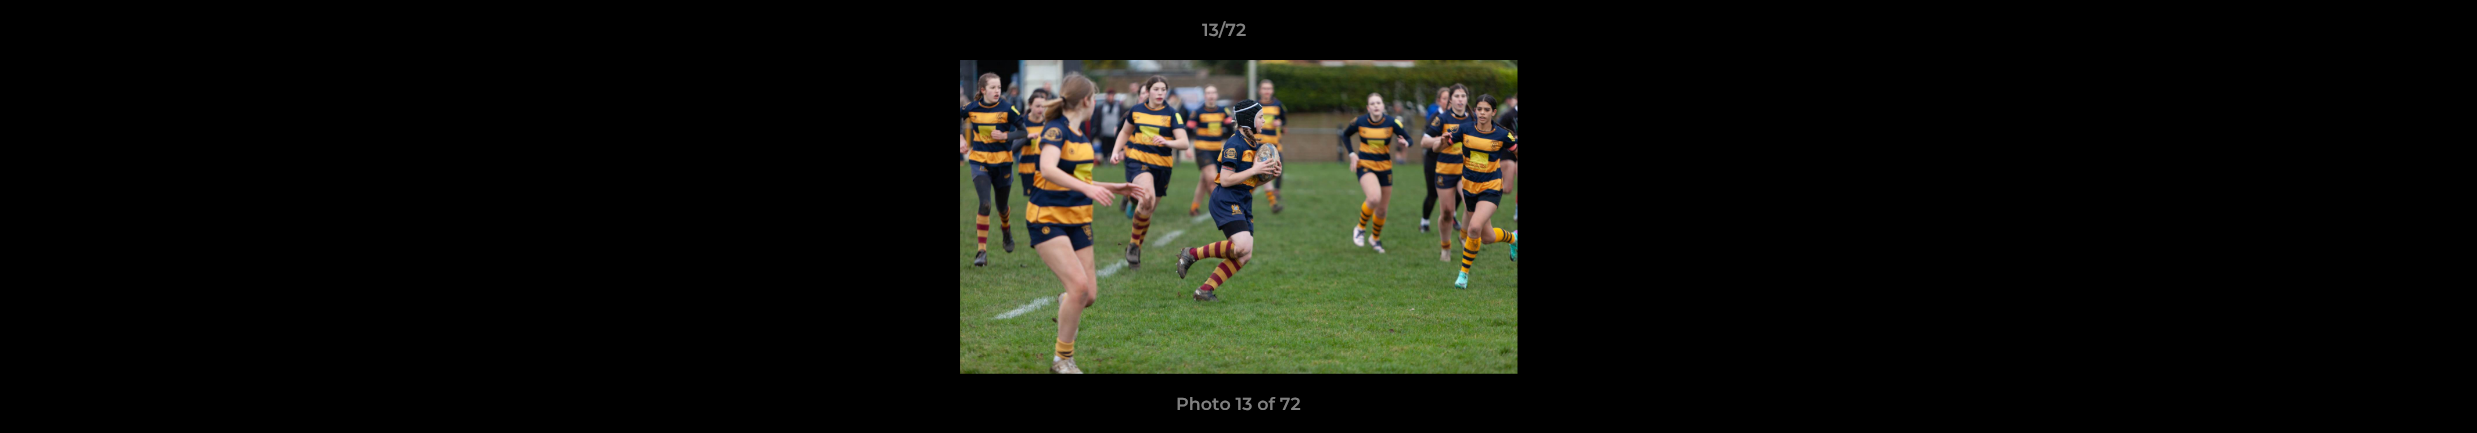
static SkFont makeFont(const char* family, int weight, float size, bool italic = false) {
  SkFontStyle style(weight, SkFontStyle::kNormal_Width,
    italic ? SkFontStyle::kItalic_Slant : SkFontStyle::kUpright_Slant);
  SkFont result(fontMgr->matchFamilyStyle(family, style), size);
  result.setSubpixel(true);
  return result;
}

static void text(SkCanvas* c, const char* s, float x, float y, const SkFont& font, SkColor color) {
  SkPaint ink(SkColor4f::FromColor(color));
  ink.setAntiAlias(true);
  c->drawString(s, x, y, font, ink);
}

static void picture(SkCanvas* c, const char* path, float l, float t, float r, float b) {
  auto image = SkImages::DeferredFromEncodedData(SkData::MakeFromFileName(path));
  c->drawImageRect(image, SkRect::MakeLTRB(l, t, r, b), SkSamplingOptions());
}

void draw(SkCanvas* c) {
  SkPaint paint;
  paint.setAntiAlias(true);
  c->clear(0xff000000);
  SkFont face1 = makeFont("Montserrat", 600, 17.5f);
  text(c, "13/72", 1202, 36, face1, 0xff808080);
  picture(c, "img_01.png", 960, 60, 1518, 374);
  text(c, "Photo 13 of 72", 1176, 410, face1, 0xff808080);
}
